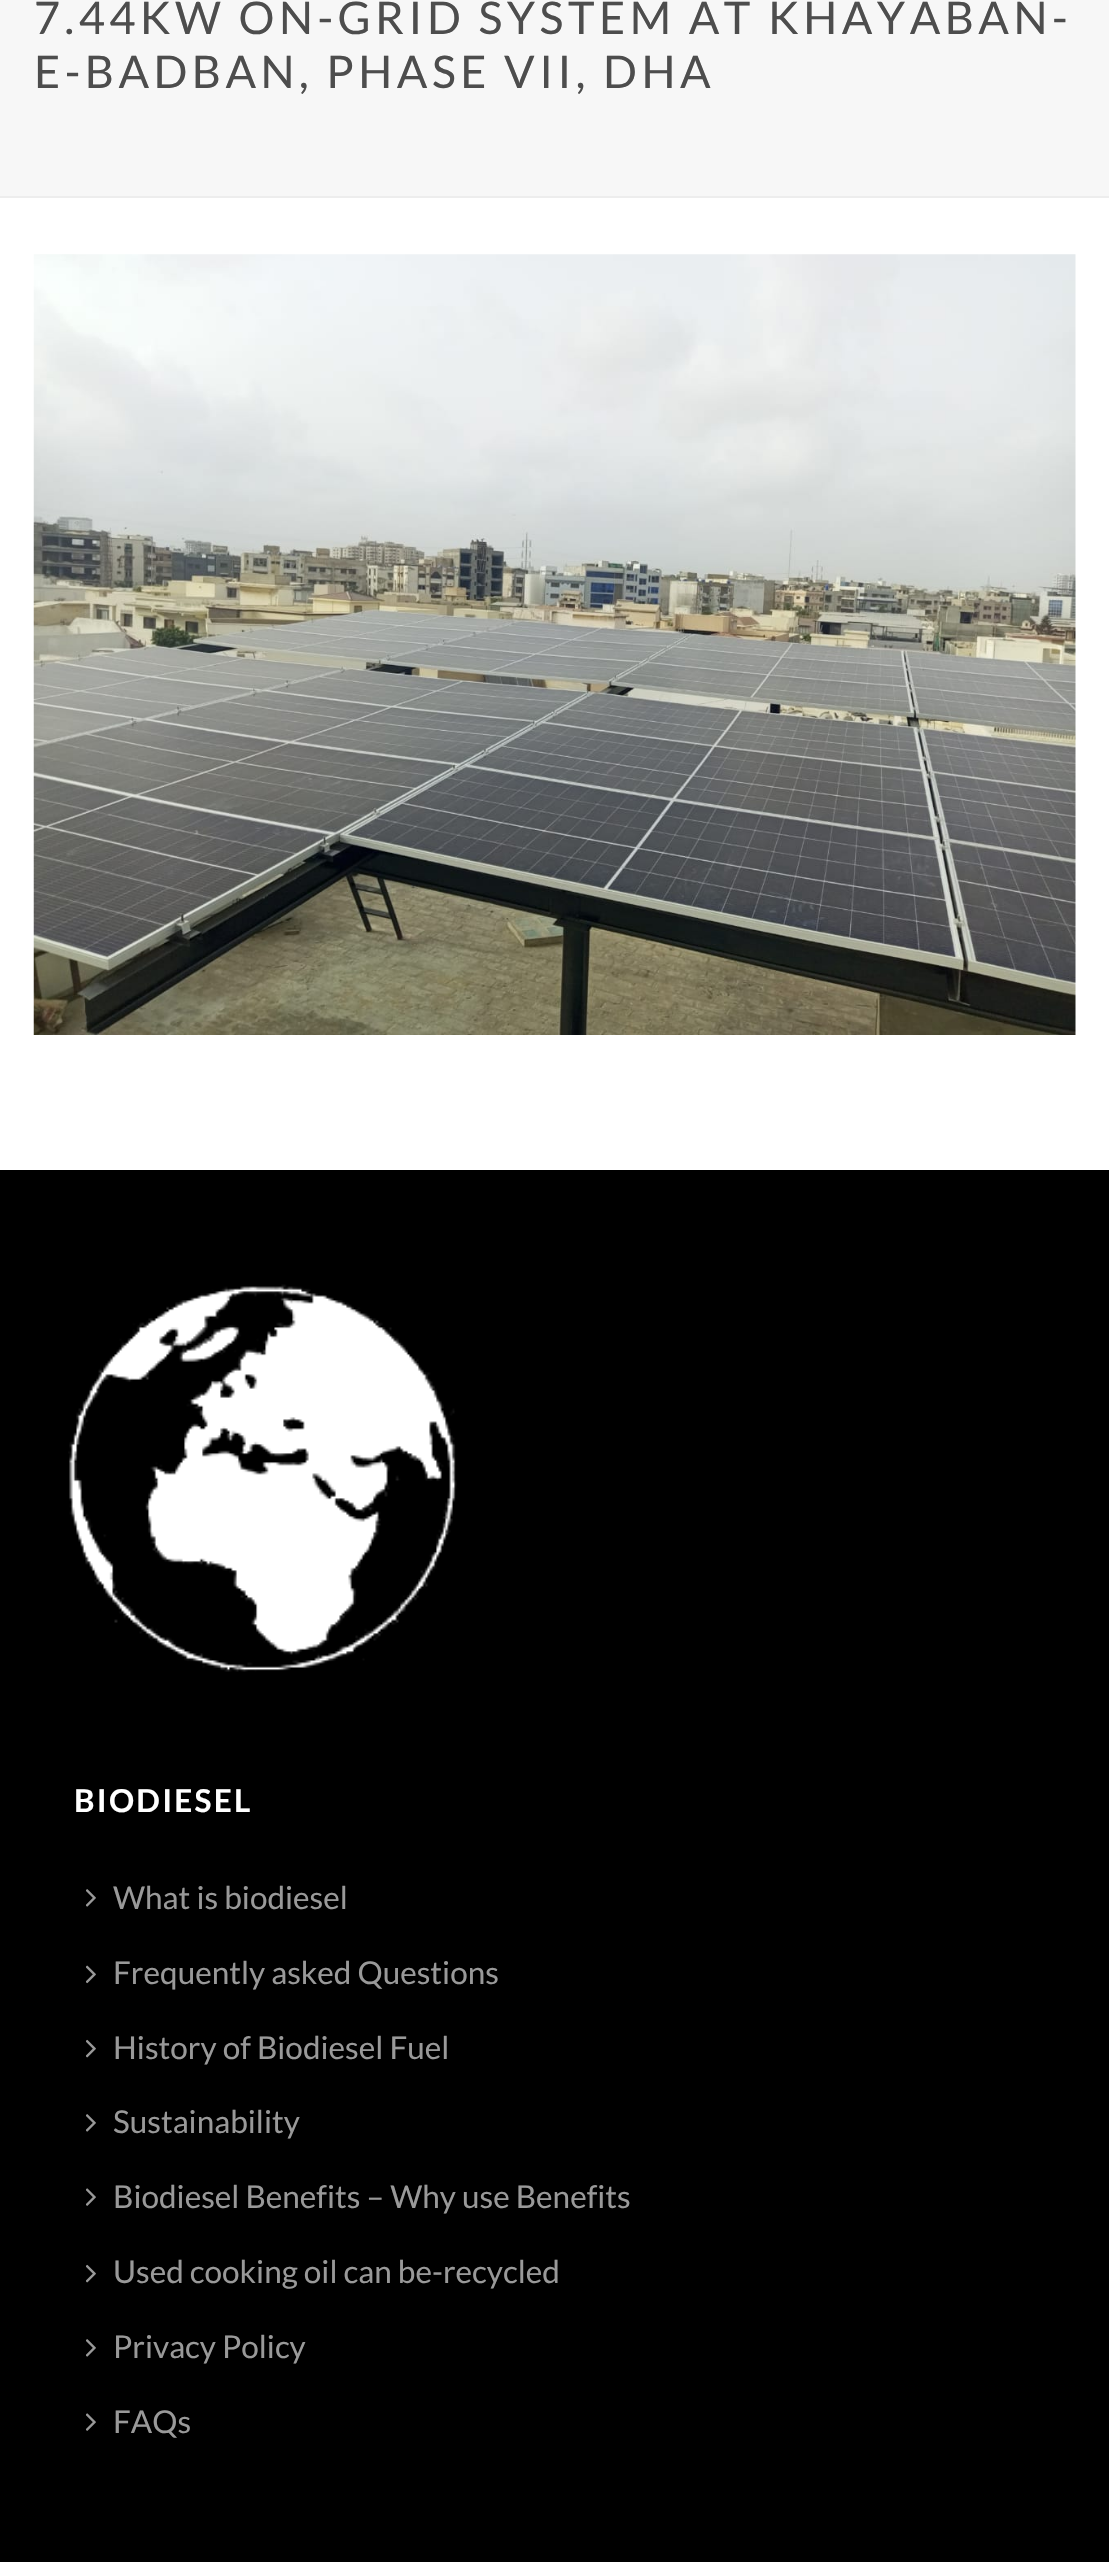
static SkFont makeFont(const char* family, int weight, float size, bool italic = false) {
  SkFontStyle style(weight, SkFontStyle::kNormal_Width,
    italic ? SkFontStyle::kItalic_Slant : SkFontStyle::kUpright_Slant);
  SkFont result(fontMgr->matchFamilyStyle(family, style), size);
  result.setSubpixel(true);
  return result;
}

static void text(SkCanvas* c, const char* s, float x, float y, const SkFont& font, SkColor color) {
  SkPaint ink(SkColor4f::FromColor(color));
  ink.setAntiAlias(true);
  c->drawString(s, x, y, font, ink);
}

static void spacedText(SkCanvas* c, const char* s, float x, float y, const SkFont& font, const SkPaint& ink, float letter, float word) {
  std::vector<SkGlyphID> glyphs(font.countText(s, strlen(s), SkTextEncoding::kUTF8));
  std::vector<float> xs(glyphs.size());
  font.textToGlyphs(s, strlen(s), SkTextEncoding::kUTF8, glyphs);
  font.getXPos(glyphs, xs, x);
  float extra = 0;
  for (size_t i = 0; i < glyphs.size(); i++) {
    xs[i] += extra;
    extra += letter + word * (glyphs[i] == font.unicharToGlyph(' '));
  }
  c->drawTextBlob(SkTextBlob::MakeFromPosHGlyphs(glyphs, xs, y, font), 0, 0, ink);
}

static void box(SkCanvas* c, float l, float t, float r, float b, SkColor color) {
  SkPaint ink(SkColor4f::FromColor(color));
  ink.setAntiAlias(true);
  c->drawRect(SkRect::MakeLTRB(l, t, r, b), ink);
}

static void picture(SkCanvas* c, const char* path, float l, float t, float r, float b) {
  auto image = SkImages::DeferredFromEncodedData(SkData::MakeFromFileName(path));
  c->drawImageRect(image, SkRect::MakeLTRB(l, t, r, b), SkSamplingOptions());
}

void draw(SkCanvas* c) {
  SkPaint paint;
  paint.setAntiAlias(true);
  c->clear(0xffffffff);
  box(c, 0, 0, 1109, 196, 0xfff7f7f7);
  box(c, 0, 196, 1109, 198, 0xffededed);
  SkFont face1 = makeFont("Lato", 400, 45);
  paint.setColor(0xff4d4d4d);
  spacedText(c, "7.44KW ON-GRID SYSTEM AT KHAYABAN-", 34, 34, face1, paint, 4.5f, 0);
  spacedText(c, "E-BADBAN, PHASE VII, DHA", 34, 88, face1, paint, 4.5f, 0);
  picture(c, "img_01.png", 33, 254, 1076, 1035);
  box(c, 0, 1170, 1109, 2562, 0xff000000);
  picture(c, "img_02.png", 68, 1284, 457, 1672);
  SkFont face2 = makeFont("Lato", 700, 31.5f);
  paint.setColor(0xffffffff);
  spacedText(c, "BIODIESEL", 74, 1812, face2, paint, 2.25f, 0);
  picture(c, "img_03.png", 86, 1889, 96, 1907);
  SkFont face3 = makeFont("Lato", 400, 31.5f);
  text(c, "What is biodiesel", 113, 1909, face3, 0xff999999);
  picture(c, "img_04.png", 86, 1965, 96, 1984);
  text(c, "Frequently asked Questions", 113, 1984, face3, 0xff999999);
  picture(c, "img_05.png", 86, 2039, 96, 2058);
  text(c, "History of Biodiesel Fuel", 113, 2059, face3, 0xff999999);
  picture(c, "img_03.png", 86, 2114, 96, 2132);
  text(c, "Sustainability", 113, 2133, face3, 0xff999999);
  picture(c, "img_06.png", 86, 2188, 96, 2206);
  text(c, "Biodiesel Benefits – Why use Benefits", 113, 2208, face3, 0xff999999);
  picture(c, "img_05.png", 86, 2264, 96, 2283);
  text(c, "Used cooking oil can be-recycled", 113, 2283, face3, 0xff999999);
  picture(c, "img_03.png", 86, 2339, 96, 2357);
  text(c, "Privacy Policy", 113, 2358, face3, 0xff999999);
  picture(c, "img_06.png", 86, 2413, 96, 2431);
  text(c, "FAQs", 113, 2433, face3, 0xff999999);
}
